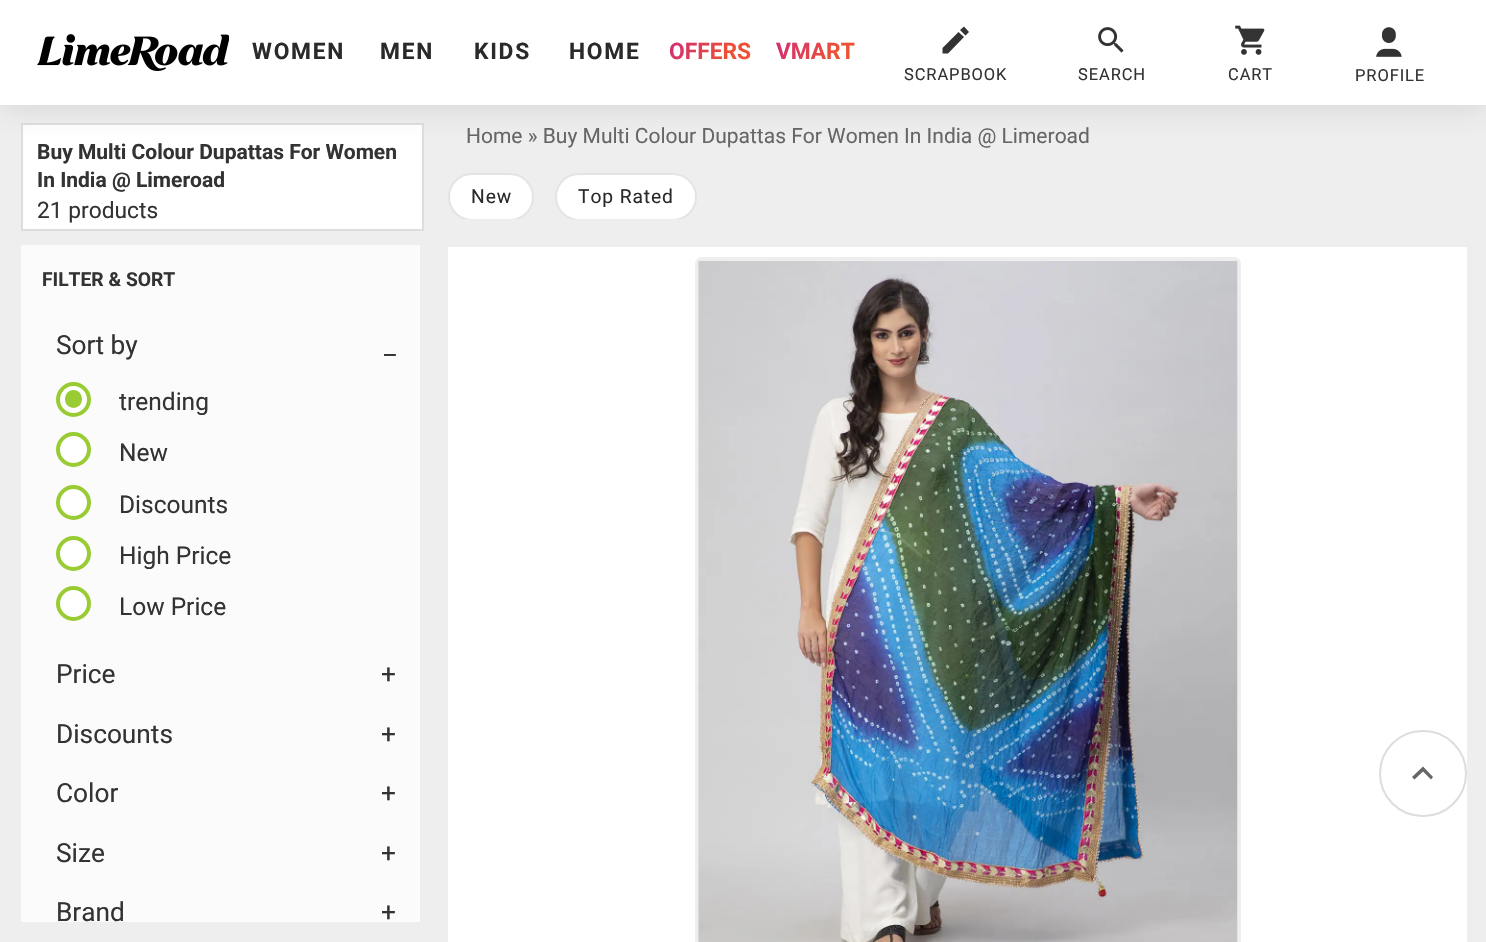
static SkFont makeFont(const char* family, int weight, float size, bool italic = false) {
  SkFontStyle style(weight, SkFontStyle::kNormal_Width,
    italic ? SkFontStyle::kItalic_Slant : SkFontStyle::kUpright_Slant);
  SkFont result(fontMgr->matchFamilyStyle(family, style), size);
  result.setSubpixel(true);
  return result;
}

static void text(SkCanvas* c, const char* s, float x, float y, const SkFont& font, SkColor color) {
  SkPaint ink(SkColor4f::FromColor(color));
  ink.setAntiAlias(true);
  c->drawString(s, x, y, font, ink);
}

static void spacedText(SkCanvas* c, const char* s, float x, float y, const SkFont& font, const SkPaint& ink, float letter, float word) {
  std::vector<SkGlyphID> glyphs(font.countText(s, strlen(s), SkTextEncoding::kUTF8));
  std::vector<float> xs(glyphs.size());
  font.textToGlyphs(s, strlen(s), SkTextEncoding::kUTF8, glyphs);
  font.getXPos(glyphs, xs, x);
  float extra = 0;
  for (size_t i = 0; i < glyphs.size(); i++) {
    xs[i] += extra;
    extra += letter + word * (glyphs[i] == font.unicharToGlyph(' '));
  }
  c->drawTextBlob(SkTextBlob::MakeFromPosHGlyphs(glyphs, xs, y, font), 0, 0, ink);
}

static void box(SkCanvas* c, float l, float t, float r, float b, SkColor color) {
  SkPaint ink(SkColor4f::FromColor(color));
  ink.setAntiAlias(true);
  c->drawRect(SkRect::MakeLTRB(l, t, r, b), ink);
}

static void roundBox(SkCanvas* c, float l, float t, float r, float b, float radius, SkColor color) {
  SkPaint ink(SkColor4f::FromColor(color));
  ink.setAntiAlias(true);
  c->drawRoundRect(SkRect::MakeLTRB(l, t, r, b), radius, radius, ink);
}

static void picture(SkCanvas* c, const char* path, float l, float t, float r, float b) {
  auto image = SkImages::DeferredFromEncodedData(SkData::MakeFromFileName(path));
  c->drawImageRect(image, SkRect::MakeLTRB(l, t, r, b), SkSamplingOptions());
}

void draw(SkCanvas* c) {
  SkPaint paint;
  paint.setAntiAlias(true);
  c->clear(0xffeeeeee);
  paint.setColor(0xffffffff);
  c->drawRect(SkRect::MakeLTRB(22, 124, 423, 230), paint);
  paint.setStyle(SkPaint::kStroke_Style);
  paint.setStrokeWidth(2);
  paint.setColor(0xffdddddd);
  c->drawRect(SkRect::MakeLTRB(22, 124, 423, 230), paint);
  paint.setStyle(SkPaint::kFill_Style);
  paint.setColor(0x29555555);
  paint.setMaskFilter(SkMaskFilter::MakeBlur(kNormal_SkBlurStyle, 14));
  c->drawRect(SkRect::MakeLTRB(0, 4, 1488, 109), paint);
  paint.setMaskFilter(nullptr);
  box(c, 0, 0, 1486, 105, 0xffffffff);
  picture(c, "img_01.png", 37, 34, 229, 71);
  SkFont face1 = makeFont("Roboto", 700, 22.75f);
  paint.setColor(0xff2a2a2a);
  spacedText(c, "WOMEN", 252, 59, face1, paint, 1.75f, 0);
  spacedText(c, "MEN", 380, 59, face1, paint, 1.75f, 0);
  spacedText(c, "KIDS", 474, 59, face1, paint, 1.75f, 0);
  spacedText(c, "HOME", 569, 59, face1, paint, 1.75f, 0);
  {
    const SkColor colors[] = {0xffce297e, 0xffed5133};
    const float stops[] = {0, 0.73f};
    const SkPoint ends[] = {{672, 27}, {745, 74}};
    paint.setShader(SkGradientShader::MakeLinear(ends, colors, stops, 2, SkTileMode::kClamp));
    paint.setAlpha(255);
  }
  c->drawString("OFFERS", 669, 59, face1, paint);
  {
    const SkColor colors[] = {0xffce297e, 0xffed5133};
    const float stops[] = {0, 0.73f};
    const SkPoint ends[] = {{779, 27}, {849, 73}};
    paint.setShader(SkGradientShader::MakeLinear(ends, colors, stops, 2, SkTileMode::kClamp));
    paint.setAlpha(255);
  }
  c->drawString("VMART", 776, 59, face1, paint);
  paint.setShader(nullptr);
  paint.setColor(0xff333333);
  c->drawPath(SkPathBuilder().moveTo(942.5f, 48).lineTo(942.5f, 53.5f).lineTo(948, 53.5f).lineTo(964, 37).lineTo(958.5f, 32).close().moveTo(969, 32).lineTo(964, 26.5f).lineTo(960, 30).lineTo(965.5f, 35.5f).close().detach(), paint);
  SkFont face2 = makeFont("Roboto", 400, 16.5f);
  spacedText(c, "SCRAPBOOK", 904, 80, face2, paint, 0.9f, 0);
  picture(c, "img_02.png", 1098, 27, 1124, 53);
  spacedText(c, "SEARCH", 1078, 80, face2, paint, 0.9f, 0);
  picture(c, "img_03.png", 1235, 25, 1265, 55);
  spacedText(c, "CART", 1228, 80, face2, paint, 0.9f, 0);
  picture(c, "img_04.png", 1376, 27, 1402, 57);
  spacedText(c, "PROFILE", 1355, 81, face2, paint, 0.9f, 0);
  SkFont face3 = makeFont("Roboto", 400, 21);
  text(c, "Home » Buy Multi Colour Dupattas For Women In India @ Limeroad", 466, 143, face3, 0xff666666);
  box(c, 448, 247, 1467, 942, 0xffffffff);
  SkFont face4 = makeFont("Roboto", 700, 21);
  text(c, "Buy Multi Colour Dupattas For Women", 37, 159, face4, 0xff333333);
  text(c, "In India @ Limeroad", 37, 187, face4, 0xff333333);
  SkFont face5 = makeFont("Roboto", 400, 22.75f);
  text(c, "21 products", 37, 218, face5, 0xff333333);
  paint.setStyle(SkPaint::kStroke_Style);
  paint.setStrokeWidth(4);
  paint.setColor(0xffeeeeee);
  c->drawRoundRect(SkRect::MakeLTRB(697, 259, 1239, 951), 5, 5, paint);
  picture(c, "img_05.png", 698, 261, 1238, 942);
  paint.setStyle(SkPaint::kFill_Style);
  paint.setColor(0xffffffff);
  c->drawRoundRect(SkRect::MakeLTRB(449, 174, 533, 220), 23, 23, paint);
  paint.setStyle(SkPaint::kStroke_Style);
  paint.setStrokeWidth(2);
  paint.setColor(0xffe8e3e3);
  c->drawRoundRect(SkRect::MakeLTRB(449, 174, 533, 220), 23, 23, paint);
  SkFont face6 = makeFont("Roboto", 400, 19.25f);
  paint.setStyle(SkPaint::kFill_Style);
  paint.setColor(0xff2a2a2a);
  spacedText(c, "New", 471, 203, face6, paint, 0.9f, 0);
  paint.setColor(0xffffffff);
  c->drawRoundRect(SkRect::MakeLTRB(556, 174, 696, 220), 23, 23, paint);
  paint.setStyle(SkPaint::kStroke_Style);
  paint.setColor(0xffe8e3e3);
  c->drawRoundRect(SkRect::MakeLTRB(556, 174, 696, 220), 23, 23, paint);
  paint.setStyle(SkPaint::kFill_Style);
  paint.setColor(0xff2a2a2a);
  spacedText(c, "Top Rated", 578, 203, face6, paint, 0.9f, 0);
  box(c, 464, 219, 681, 221, 0xffeeeeee);
  box(c, 21, 245, 420, 922, 0xfffbfbfb);
  SkFont face7 = makeFont("Roboto", 700, 19.25f);
  text(c, "FILTER & SORT", 42, 286, face7, 0xff333333);
  SkFont face8 = makeFont("Roboto", 400, 26.25f);
  text(c, "Sort by", 56, 354, face8, 0xff333333);
  text(c, "_", 384, 354, face8, 0xff333333);
  paint.setColor(0xffffffff);
  c->drawCircle(73.5f, 399.5f, 15.5f, paint);
  paint.setStyle(SkPaint::kStroke_Style);
  paint.setStrokeWidth(4);
  paint.setColor(0xff99cc33);
  c->drawCircle(73.5f, 399.5f, 15.5f, paint);
  roundBox(c, 65, 390, 82, 408, 8.5f, 0xff99cc33);
  SkFont face9 = makeFont("Roboto", 400, 24.5f);
  text(c, "trending", 119, 410, face9, 0xff333333);
  paint.setStyle(SkPaint::kFill_Style);
  paint.setColor(0xffffffff);
  c->drawCircle(73.5f, 449.5f, 15.5f, paint);
  paint.setStyle(SkPaint::kStroke_Style);
  paint.setColor(0xff99cc33);
  c->drawCircle(73.5f, 449.5f, 15.5f, paint);
  text(c, "New", 119, 461, face9, 0xff333333);
  paint.setStyle(SkPaint::kFill_Style);
  paint.setColor(0xffffffff);
  c->drawCircle(73.5f, 502.5f, 15.5f, paint);
  paint.setStyle(SkPaint::kStroke_Style);
  paint.setColor(0xff99cc33);
  c->drawCircle(73.5f, 502.5f, 15.5f, paint);
  text(c, "Discounts", 119, 513, face9, 0xff333333);
  paint.setStyle(SkPaint::kFill_Style);
  paint.setColor(0xffffffff);
  c->drawCircle(73.5f, 553.5f, 15.5f, paint);
  paint.setStyle(SkPaint::kStroke_Style);
  paint.setColor(0xff99cc33);
  c->drawCircle(73.5f, 553.5f, 15.5f, paint);
  text(c, "High Price", 119, 564, face9, 0xff333333);
  paint.setStyle(SkPaint::kFill_Style);
  paint.setColor(0xffffffff);
  c->drawCircle(73.5f, 603.5f, 15.5f, paint);
  paint.setStyle(SkPaint::kStroke_Style);
  paint.setColor(0xff99cc33);
  c->drawCircle(73.5f, 603.5f, 15.5f, paint);
  text(c, "Low Price", 119, 615, face9, 0xff333333);
  text(c, "Price", 56, 683, face8, 0xff333333);
  text(c, "+", 381, 683, face8, 0xff333333);
  text(c, "Discounts", 56, 743, face8, 0xff333333);
  text(c, "+", 381, 743, face8, 0xff333333);
  text(c, "Color", 56, 802, face8, 0xff333333);
  text(c, "+", 381, 802, face8, 0xff333333);
  text(c, "Size", 56, 862, face8, 0xff333333);
  text(c, "+", 381, 862, face8, 0xff333333);
  text(c, "Brand", 56, 921, face8, 0xff333333);
  text(c, "+", 381, 921, face8, 0xff333333);
  paint.setStrokeWidth(2);
  paint.setColor(0xffdddddd);
  c->drawRoundRect(SkRect::MakeLTRB(1380, 731, 1466, 816), 42.5f, 42.5f, paint);
  paint.setStyle(SkPaint::kFill_Style);
  paint.setColor(0xff666666);
  c->drawPath(SkPathBuilder().moveTo(1414.5f, 779.5f).lineTo(1423, 771.5f).lineTo(1431, 779.5f).lineTo(1433, 777).lineTo(1423, 766.5f).lineTo(1412, 777).close().detach(), paint);
}
